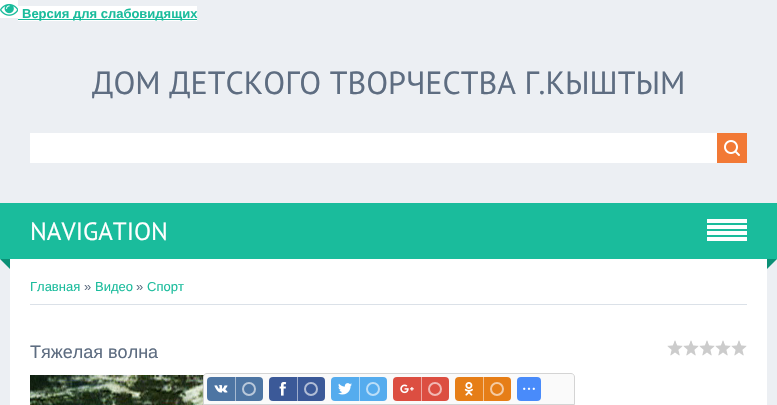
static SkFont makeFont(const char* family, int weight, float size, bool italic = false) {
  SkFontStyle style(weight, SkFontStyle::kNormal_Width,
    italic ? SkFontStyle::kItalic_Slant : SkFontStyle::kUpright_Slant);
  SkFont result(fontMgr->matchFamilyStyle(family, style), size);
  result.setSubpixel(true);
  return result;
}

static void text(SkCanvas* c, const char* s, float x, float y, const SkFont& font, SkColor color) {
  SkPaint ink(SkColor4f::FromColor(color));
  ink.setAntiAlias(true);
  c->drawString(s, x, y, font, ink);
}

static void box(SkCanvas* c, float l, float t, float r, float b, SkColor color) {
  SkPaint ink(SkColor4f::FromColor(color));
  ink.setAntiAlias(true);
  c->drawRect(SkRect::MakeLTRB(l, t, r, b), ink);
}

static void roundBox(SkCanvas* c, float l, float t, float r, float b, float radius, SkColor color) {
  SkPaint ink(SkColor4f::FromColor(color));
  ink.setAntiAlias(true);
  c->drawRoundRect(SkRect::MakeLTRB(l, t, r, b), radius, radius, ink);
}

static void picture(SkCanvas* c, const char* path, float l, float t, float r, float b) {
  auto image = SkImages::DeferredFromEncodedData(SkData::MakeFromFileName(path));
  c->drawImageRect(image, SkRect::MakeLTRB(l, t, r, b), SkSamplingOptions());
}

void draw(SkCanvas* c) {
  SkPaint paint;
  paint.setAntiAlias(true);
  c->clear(0xffeceff3);
  box(c, 0, 0, 18, 18, 0xffffffff);
  picture(c, "img_01.png", 0, 3, 18, 16);
  box(c, 18, 6, 197, 21, 0xffffffff);
  box(c, 18, 19, 197, 20, 0xff1abc9c);
  SkFont face1 = makeFont("Liberation Sans", 700, 13);
  text(c, "Версия для слабовидящих", 22, 18, face1, 0xff1abc9c);
  SkFont face2 = makeFont("PT Sans", 400, 32);
  text(c, "ДОМ ДЕТСКОГО ТВОРЧЕСТВА Г.КЫШТЫМ", 92, 94, face2, 0xff5e6d81);
  box(c, 30, 133, 717, 163, 0xffffffff);
  box(c, 717, 133, 747, 163, 0xfff27935);
  picture(c, "img_02.png", 724, 140, 740, 156);
  box(c, 0, 203, 777, 259, 0xff1abc9c);
  SkFont face3 = makeFont("PT Sans", 400, 25);
  text(c, "NAVIGATION", 30, 240, face3, 0xffffffff);
  box(c, 707, 219, 747, 223, 0xffffffff);
  box(c, 707, 225, 747, 229, 0xffffffff);
  box(c, 707, 231, 747, 235, 0xffffffff);
  box(c, 707, 237, 747, 241, 0xffffffff);
  paint.setColor(0xff0c9076);
  c->drawPath(SkPathBuilder().moveTo(0, 259).lineTo(10, 259).lineTo(10, 269).close().detach(), paint);
  c->drawPath(SkPathBuilder().moveTo(767, 259).lineTo(777, 259).lineTo(767, 269).close().detach(), paint);
  box(c, 10, 259, 767, 405, 0xffffffff);
  SkFont face4 = makeFont("Liberation Sans", 400, 13);
  text(c, "Главная", 30, 291, face4, 0xff1abc9c);
  text(c, "»", 84, 291, face4, 0xff5e6d81);
  text(c, "Видео", 95, 291, face4, 0xff1abc9c);
  text(c, "»", 136, 291, face4, 0xff5e6d81);
  text(c, "Спорт", 147, 291, face4, 0xff1abc9c);
  box(c, 30, 304, 747, 305, 0xffdbe1e8);
  SkFont face5 = makeFont("Liberation Sans", 400, 18);
  text(c, "Тяжелая волна", 30, 358, face5, 0xff5e6d81);
  picture(c, "img_03.png", 667, 340, 747, 356);
  picture(c, "img_04.png", 30, 375, 204, 405);
  paint.setColor(0xfffafafa);
  c->drawPath(SkPathBuilder().moveTo(207, 373.5f).lineTo(571, 373.5f).cubicTo(573, 373.5f, 574.5f, 375, 574.5f, 377).lineTo(574.5f, 404.5f).lineTo(203.5f, 404.5f).lineTo(203.5f, 377).cubicTo(203.5f, 375, 205, 373.5f, 207, 373.5f).close().detach(), paint);
  paint.setStyle(SkPaint::kStroke_Style);
  paint.setStrokeWidth(1);
  paint.setColor(0xffd4d4d4);
  c->drawPath(SkPathBuilder().moveTo(207, 373.5f).lineTo(571, 373.5f).cubicTo(573, 373.5f, 574.5f, 375, 574.5f, 377).lineTo(574.5f, 404.5f).lineTo(203.5f, 404.5f).lineTo(203.5f, 377).cubicTo(203.5f, 375, 205, 373.5f, 207, 373.5f).close().detach(), paint);
  roundBox(c, 207, 377, 263, 401, 4, 0xff4d75a3);
  picture(c, "img_05.png", 214, 385, 228, 393);
  box(c, 235, 377, 236, 401, 0xffa6bad1);
  paint.setStrokeWidth(2);
  paint.setColor(0xffb8c8da);
  c->drawCircle(249, 389, 6, paint);
  roundBox(c, 269, 377, 325, 401, 4, 0xff3b5998);
  picture(c, "img_06.png", 279, 382, 287, 396);
  box(c, 297, 377, 298, 401, 0xff9daccc);
  paint.setColor(0xffb1bdd6);
  c->drawCircle(311, 389, 6, paint);
  roundBox(c, 331, 377, 387, 401, 4, 0xff55acee);
  picture(c, "img_07.png", 338, 383, 352, 395);
  box(c, 359, 377, 360, 401, 0xffaad6f7);
  paint.setColor(0xffbbdef8);
  c->drawCircle(373, 389, 6, paint);
  roundBox(c, 393, 377, 449, 401, 4, 0xffdc4e41);
  picture(c, "img_08.png", 400, 384, 414, 394);
  box(c, 421, 377, 422, 401, 0xffeea7a0);
  paint.setColor(0xfff1b8b3);
  c->drawCircle(435, 389, 6, paint);
  roundBox(c, 455, 377, 511, 401, 4, 0xffe67e17);
  picture(c, "img_09.png", 464, 382, 473, 396);
  box(c, 483, 377, 484, 401, 0xfff3bf8b);
  paint.setColor(0xfff5cba2);
  c->drawCircle(497, 389, 6, paint);
  roundBox(c, 517, 377, 541, 401, 4, 0xff498bfa);
  picture(c, "img_10.png", 523, 387, 535, 390);
}
